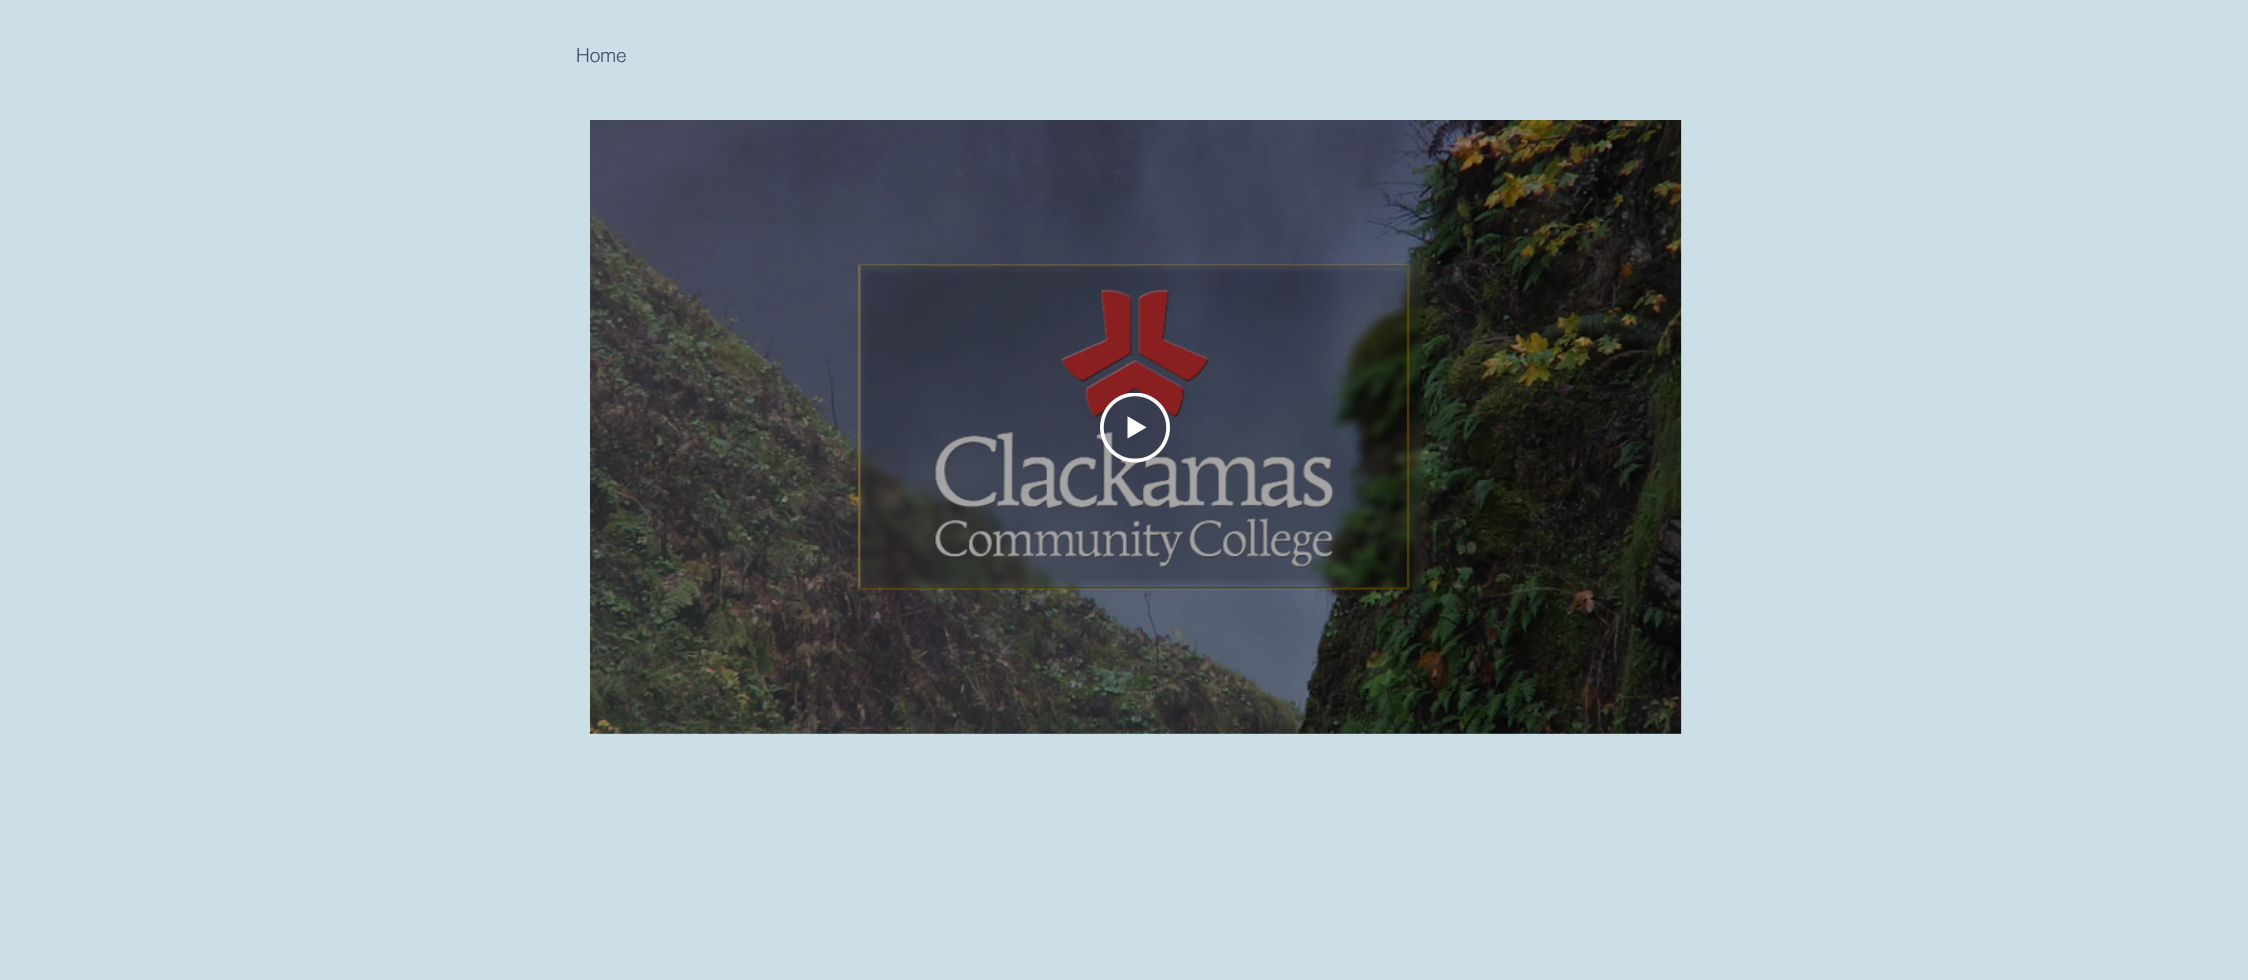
static SkFont makeFont(const char* family, int weight, float size, bool italic = false) {
  SkFontStyle style(weight, SkFontStyle::kNormal_Width,
    italic ? SkFontStyle::kItalic_Slant : SkFontStyle::kUpright_Slant);
  SkFont result(fontMgr->matchFamilyStyle(family, style), size);
  result.setSubpixel(true);
  return result;
}

static void text(SkCanvas* c, const char* s, float x, float y, const SkFont& font, SkColor color) {
  SkPaint ink(SkColor4f::FromColor(color));
  ink.setAntiAlias(true);
  c->drawString(s, x, y, font, ink);
}

static void picture(SkCanvas* c, const char* path, float l, float t, float r, float b) {
  auto image = SkImages::DeferredFromEncodedData(SkData::MakeFromFileName(path));
  c->drawImageRect(image, SkRect::MakeLTRB(l, t, r, b), SkSamplingOptions());
}

void draw(SkCanvas* c) {
  SkPaint paint;
  paint.setAntiAlias(true);
  c->clear(0xffccdee6);
  SkFont face1 = makeFont("helvetica", 300, 19);
  text(c, "Home", 576, 62, face1, 0xff3d4d69);
  picture(c, "img_01.png", 590, 120, 1682, 734);
  picture(c, "img_02.png", 590, 120, 1682, 734);
  picture(c, "img_03.png", 1100, 393, 1170, 463);
}
